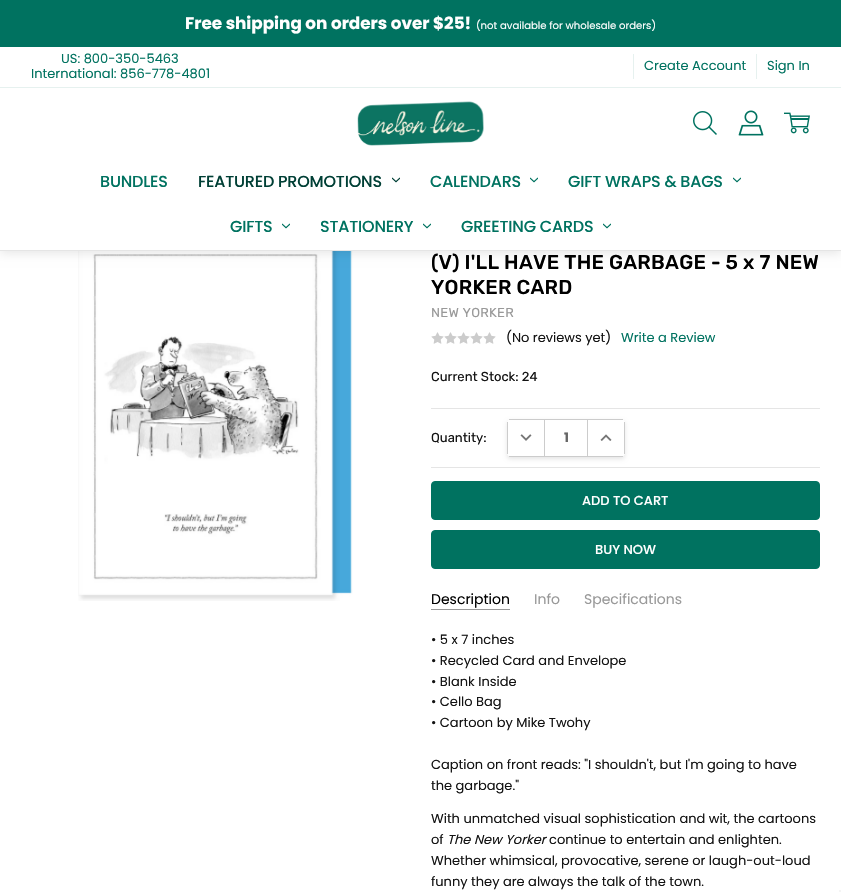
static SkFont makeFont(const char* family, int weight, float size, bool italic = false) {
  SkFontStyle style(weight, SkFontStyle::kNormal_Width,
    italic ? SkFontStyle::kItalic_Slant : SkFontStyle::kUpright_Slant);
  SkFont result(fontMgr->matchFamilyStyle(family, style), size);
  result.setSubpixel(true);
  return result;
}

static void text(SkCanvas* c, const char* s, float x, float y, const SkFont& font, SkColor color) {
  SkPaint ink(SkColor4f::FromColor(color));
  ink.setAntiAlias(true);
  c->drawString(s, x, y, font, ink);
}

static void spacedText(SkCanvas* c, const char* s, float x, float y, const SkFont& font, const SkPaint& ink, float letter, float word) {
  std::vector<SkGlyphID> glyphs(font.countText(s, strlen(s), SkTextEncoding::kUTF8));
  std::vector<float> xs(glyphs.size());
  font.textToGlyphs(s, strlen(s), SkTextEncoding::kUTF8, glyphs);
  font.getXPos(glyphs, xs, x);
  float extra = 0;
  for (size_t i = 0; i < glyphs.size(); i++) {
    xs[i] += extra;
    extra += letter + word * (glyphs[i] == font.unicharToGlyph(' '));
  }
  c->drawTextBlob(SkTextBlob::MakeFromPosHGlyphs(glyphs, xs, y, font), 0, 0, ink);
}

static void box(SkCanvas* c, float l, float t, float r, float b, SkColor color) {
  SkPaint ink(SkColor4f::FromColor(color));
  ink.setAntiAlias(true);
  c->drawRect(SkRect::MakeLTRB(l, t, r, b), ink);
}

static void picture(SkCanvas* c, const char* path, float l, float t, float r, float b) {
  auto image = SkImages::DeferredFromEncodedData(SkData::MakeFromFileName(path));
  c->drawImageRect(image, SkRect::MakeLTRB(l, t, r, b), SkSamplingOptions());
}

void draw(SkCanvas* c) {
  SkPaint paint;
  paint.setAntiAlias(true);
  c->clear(0xffffffff);
  picture(c, "img_07.png", 78, 251, 353, 601);
  paint.setColor(0x1a000000);
  paint.setMaskFilter(SkMaskFilter::MakeBlur(kNormal_SkBlurStyle, 5));
  c->drawRect(SkRect::MakeLTRB(0, 2, 841, 253), paint);
  paint.setMaskFilter(nullptr);
  box(c, 0, 47, 841, 250, 0xffffffff);
  box(c, 0, 250, 841, 251, 0xffe5e5e5);
  box(c, 0, 87, 841, 88, 0xffe6f1ef);
  box(c, 0, 0, 841, 47, 0xff007260);
  SkFont face1 = makeFont("Poppins", 700, 16.8f);
  text(c, "Free shipping on orders over $25!", 185, 29, face1, 0xffffffff);
  SkFont face2 = makeFont("Poppins", 400, 10.1f);
  text(c, "(not available for wholesale orders)", 476, 29, face2, 0xffffffff);
  SkFont face3 = makeFont("Poppins", 400, 13);
  text(c, "US: 800-350-5463", 61, 63, face3, 0xff007260);
  text(c, "International: 856-778-4801", 31, 78, face3, 0xff007260);
  box(c, 633, 54, 634, 79, 0xffe6f1ef);
  text(c, "Create Account", 644, 70, face3, 0xff007260);
  box(c, 756, 54, 757, 79, 0xffe6f1ef);
  text(c, "Sign In", 767, 70, face3, 0xff007260);
  picture(c, "img_01.png", 357, 101, 484, 146);
  picture(c, "img_02.png", 693, 111, 717, 135);
  picture(c, "img_03.png", 738, 110, 764, 136);
  picture(c, "img_04.png", 784, 112, 810, 134);
  SkFont face4 = makeFont("Poppins", 500, 16);
  paint.setColor(0xff007260);
  spacedText(c, "BUNDLES", 100, 187, face4, paint, -0.2f, 0);
  paint.setColor(0xff003f35);
  spacedText(c, "FEATURED PROMOTIONS", 198, 187, face4, paint, -0.2f, 0);
  picture(c, "img_05.png", 392, 177, 400, 183);
  paint.setColor(0xff007260);
  spacedText(c, "CALENDARS", 430, 187, face4, paint, -0.2f, 0);
  picture(c, "img_06.png", 530, 177, 538, 183);
  spacedText(c, "GIFT WRAPS & BAGS", 568, 187, face4, paint, -0.2f, 0);
  picture(c, "img_06.png", 733, 177, 741, 183);
  spacedText(c, "GIFTS", 230, 232, face4, paint, -0.2f, 0);
  picture(c, "img_06.png", 282, 223, 290, 229);
  spacedText(c, "STATIONERY", 320, 232, face4, paint, -0.2f, 0);
  picture(c, "img_06.png", 423, 223, 431, 229);
  spacedText(c, "GREETING CARDS", 461, 232, face4, paint, -0.2f, 0);
  picture(c, "img_06.png", 603, 223, 611, 229);
  SkFont face5 = makeFont("Rubik", 500, 20);
  paint.setColor(0xff000000);
  spacedText(c, "(V) I'LL HAVE THE GARBAGE - 5 x 7 NEW", 431, 269, face5, paint, 0.25f, 0);
  spacedText(c, "YORKER CARD", 431, 294, face5, paint, 0.25f, 0);
  SkFont face6 = makeFont("Rubik", 400, 13);
  paint.setColor(0xff999999);
  spacedText(c, "NEW YORKER", 431, 317, face6, paint, 0.25f, 0);
  picture(c, "img_08.png", 431, 332, 444, 344);
  picture(c, "img_08.png", 444, 332, 457, 344);
  picture(c, "img_08.png", 457, 332, 470, 344);
  picture(c, "img_08.png", 470, 332, 483, 344);
  picture(c, "img_08.png", 483, 332, 496, 344);
  text(c, "(No reviews yet)", 506, 342, face3, 0xff131313);
  text(c, "Write a Review", 621, 342, face3, 0xff007260);
  text(c, "Current Stock: 24", 431, 381, face6, 0xff131313);
  box(c, 431, 408, 820, 409, 0xffe5e5e5);
  box(c, 431, 467, 820, 468, 0xffe5e5e5);
  text(c, "Quantity:", 431, 442, face6, 0xff131313);
  c->save();
  c->clipPath(SkPathBuilder(SkPathFillType::kEvenOdd).moveTo(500, 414).lineTo(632, 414).lineTo(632, 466).lineTo(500, 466).close().moveTo(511, 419).lineTo(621, 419).cubicTo(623, 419, 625, 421, 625, 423).lineTo(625, 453).cubicTo(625, 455, 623, 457, 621, 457).lineTo(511, 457).cubicTo(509, 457, 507, 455, 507, 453).lineTo(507, 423).cubicTo(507, 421, 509, 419, 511, 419).close().detach(), true);
  paint.setColor(0x1a000000);
  paint.setMaskFilter(SkMaskFilter::MakeBlur(kNormal_SkBlurStyle, 2));
  c->drawRoundRect(SkRect::MakeLTRB(507, 421, 625, 459), 4, 4, paint);
  paint.setMaskFilter(nullptr);
  c->restore();
  box(c, 509, 419, 623, 420, 0xffcccccc);
  box(c, 509, 456, 623, 457, 0xffcccccc);
  box(c, 544, 420, 545, 456, 0xffcccccc);
  box(c, 507, 422, 508, 454, 0xffcccccc);
  picture(c, "img_09.png", 520, 434, 532, 441);
  SkFont face7 = makeFont("Poppins", 700, 13);
  text(c, "1", 564, 442, face7, 0xff666666);
  box(c, 624, 422, 625, 454, 0xffcccccc);
  box(c, 587, 420, 588, 456, 0xffcccccc);
  picture(c, "img_10.png", 600, 434, 612, 441);
  paint.setColor(0xff007260);
  c->drawRoundRect(SkRect::MakeLTRB(431.5f, 481.5f, 819.5f, 519.5f), 3.5f, 3.5f, paint);
  paint.setStyle(SkPaint::kStroke_Style);
  paint.setStrokeWidth(1);
  c->drawRoundRect(SkRect::MakeLTRB(431.5f, 481.5f, 819.5f, 519.5f), 3.5f, 3.5f, paint);
  SkFont face8 = makeFont("Poppins", 500, 13);
  text(c, "ADD TO CART", 582, 505, face8, 0xffffffff);
  paint.setStyle(SkPaint::kFill_Style);
  c->drawRoundRect(SkRect::MakeLTRB(431.5f, 530.5f, 819.5f, 568.5f), 3.5f, 3.5f, paint);
  paint.setStyle(SkPaint::kStroke_Style);
  c->drawRoundRect(SkRect::MakeLTRB(431.5f, 530.5f, 819.5f, 568.5f), 3.5f, 3.5f, paint);
  text(c, "BUY NOW", 595, 554, face8, 0xffffffff);
  box(c, 431, 609, 510, 610, 0xff999999);
  SkFont face9 = makeFont("Poppins", 400, 14);
  text(c, "Description", 431, 604, face9, 0xff000000);
  text(c, "Info", 534, 604, face9, 0xff999999);
  text(c, "Specifications", 584, 604, face9, 0xff999999);
  text(c, "• 5 x 7 inches", 431, 644, face3, 0xff131313);
  text(c, "• Recycled Card and Envelope", 431, 665, face3, 0xff131313);
  text(c, "• Blank Inside", 431, 686, face3, 0xff131313);
  text(c, "• Cello Bag", 431, 706, face3, 0xff131313);
  text(c, "• Cartoon by Mike Twohy", 431, 727, face3, 0xff131313);
  text(c, "Caption on front reads: \"I shouldn't, but I'm going to have", 431, 769, face3, 0xff131313);
  text(c, "the garbage.\"", 431, 790, face3, 0xff131313);
  text(c, "With unmatched visual sophistication and wit, the cartoons", 431, 823, face3, 0xff131313);
  text(c, "of", 431, 844, face3, 0xff131313);
  SkFont face10 = makeFont("Poppins", 400, 13, true);
  text(c, "The New Yorker", 447, 844, face10, 0xff131313);
  text(c, "continue to entertain and enlighten.", 549, 844, face3, 0xff131313);
  text(c, "Whether whimsical, provocative, serene or laugh-out-loud", 431, 865, face3, 0xff131313);
  text(c, "funny they are always the talk of the town.", 431, 886, face3, 0xff131313);
  box(c, 839, 890, 841, 892, 0xfff5f5f5);
}
